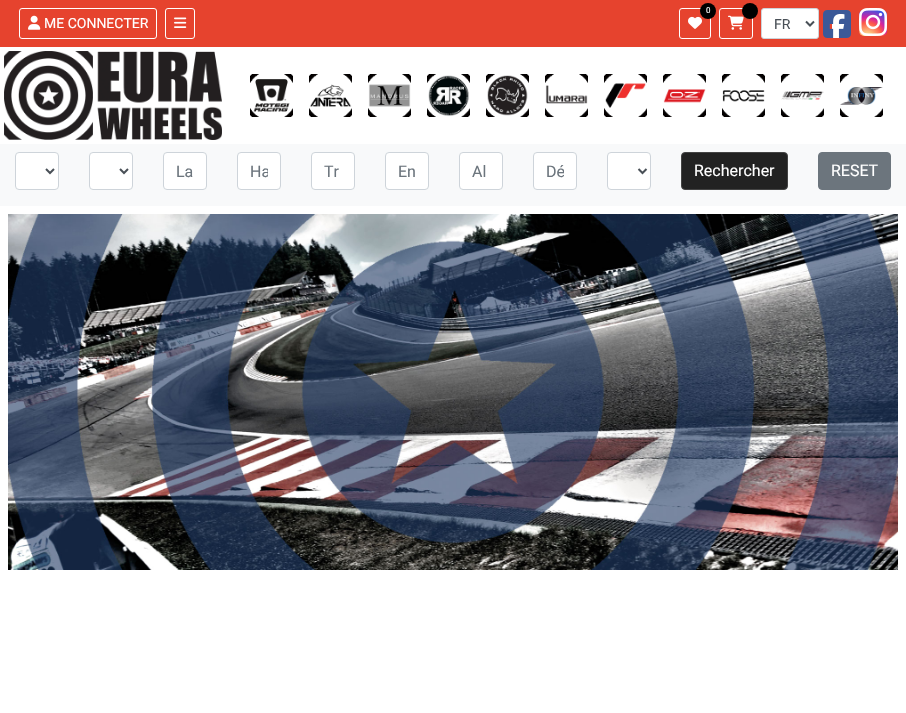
static SkFont makeFont(const char* family, int weight, float size, bool italic = false) {
  SkFontStyle style(weight, SkFontStyle::kNormal_Width,
    italic ? SkFontStyle::kItalic_Slant : SkFontStyle::kUpright_Slant);
  SkFont result(fontMgr->matchFamilyStyle(family, style), size);
  result.setSubpixel(true);
  return result;
}

static void text(SkCanvas* c, const char* s, float x, float y, const SkFont& font, SkColor color) {
  SkPaint ink(SkColor4f::FromColor(color));
  ink.setAntiAlias(true);
  c->drawString(s, x, y, font, ink);
}

static void box(SkCanvas* c, float l, float t, float r, float b, SkColor color) {
  SkPaint ink(SkColor4f::FromColor(color));
  ink.setAntiAlias(true);
  c->drawRect(SkRect::MakeLTRB(l, t, r, b), ink);
}

static void picture(SkCanvas* c, const char* path, float l, float t, float r, float b) {
  auto image = SkImages::DeferredFromEncodedData(SkData::MakeFromFileName(path));
  c->drawImageRect(image, SkRect::MakeLTRB(l, t, r, b), SkSamplingOptions());
}

void draw(SkCanvas* c) {
  SkPaint paint;
  paint.setAntiAlias(true);
  c->clear(0xffffffff);
  box(c, 0, 0, 906, 47, 0xffe6432e);
  paint.setStyle(SkPaint::kStroke_Style);
  paint.setStrokeWidth(1);
  paint.setColor(0xffffffff);
  c->drawRoundRect(SkRect::MakeLTRB(19.5f, 8.5f, 156.5f, 38.5f), 2.5f, 2.5f, paint);
  picture(c, "img_01.png", 28, 15, 41, 30);
  SkFont face1 = makeFont("Roboto", 400, 14);
  text(c, "ME CONNECTER", 44, 28, face1, 0xffffffff);
  c->drawRoundRect(SkRect::MakeLTRB(165.5f, 8.5f, 194.5f, 38.5f), 2.5f, 2.5f, paint);
  picture(c, "img_02.png", 174, 17, 187, 28);
  c->drawRoundRect(SkRect::MakeLTRB(679.5f, 8.5f, 710.5f, 38.5f), 2.5f, 2.5f, paint);
  picture(c, "img_03.png", 688, 16, 702, 29);
  paint.setStyle(SkPaint::kFill_Style);
  paint.setColor(0xff000000);
  c->drawCircle(708, 11, 8, paint);
  SkFont face2 = makeFont("Roboto", 400, 8);
  text(c, "0", 706, 13, face2, 0xffffffff);
  paint.setStyle(SkPaint::kStroke_Style);
  paint.setColor(0xffffffff);
  c->drawRoundRect(SkRect::MakeLTRB(719.5f, 8.5f, 752.5f, 38.5f), 2.5f, 2.5f, paint);
  picture(c, "img_04.png", 728, 15, 744, 30);
  paint.setStyle(SkPaint::kFill_Style);
  paint.setColor(0xff000000);
  c->drawCircle(750, 11, 8, paint);
  paint.setColor(0xffffffff);
  c->drawRoundRect(SkRect::MakeLTRB(761.5f, 8.5f, 818.5f, 38.5f), 2.5f, 2.5f, paint);
  paint.setStyle(SkPaint::kStroke_Style);
  paint.setColor(0xffced4da);
  c->drawRoundRect(SkRect::MakeLTRB(761.5f, 8.5f, 818.5f, 38.5f), 2.5f, 2.5f, paint);
  paint.setStrokeWidth(2);
  paint.setColor(0xff495057);
  c->drawPath(SkPathBuilder().moveTo(806, 21.5f).lineTo(810, 25.5f).lineTo(814, 21.5f).detach(), paint);
  text(c, "FR", 774, 29, face1, 0xff495057);
  box(c, 832, 14, 845, 38, 0xffffffff);
  picture(c, "img_05.png", 823, 10, 851, 38);
  paint.setStyle(SkPaint::kFill_Style);
  {
    const SkColor colors[] = {0xfffdf497, 0xfffdf497, 0xfffd5949, 0xffd6249f, 0xff285aeb};
    const float stops[] = {0, 0.05f, 0.45f, 0.6f, 0.9f};
    paint.setShader(SkGradientShader::MakeRadial({867, 38}, 34, colors, stops, 5, SkTileMode::kClamp));
    paint.setAlpha(255);
  }
  c->drawRoundRect(SkRect::MakeLTRB(859, 10, 887, 36), 5, 5, paint);
  picture(c, "img_06.png", 859, 8, 887, 36);
  picture(c, "img_07.png", 4, 51, 222, 140);
  picture(c, "img_08.png", 250, 74, 293, 117);
  picture(c, "img_09.png", 309, 74, 352, 117);
  picture(c, "img_10.png", 368, 74, 411, 117);
  picture(c, "img_11.png", 427, 74, 470, 117);
  picture(c, "img_12.png", 486, 74, 529, 117);
  picture(c, "img_13.png", 545, 74, 588, 117);
  picture(c, "img_14.png", 604, 74, 647, 117);
  picture(c, "img_15.png", 663, 74, 706, 117);
  picture(c, "img_16.png", 722, 74, 765, 117);
  picture(c, "img_17.png", 781, 74, 824, 117);
  picture(c, "img_18.png", 840, 74, 883, 117);
  box(c, 0, 144, 906, 206, 0xfff8f9fa);
  paint.setShader(nullptr);
  paint.setColor(0xffffffff);
  c->drawRoundRect(SkRect::MakeLTRB(15.5f, 152.5f, 58.5f, 189.5f), 3.5f, 3.5f, paint);
  paint.setStyle(SkPaint::kStroke_Style);
  paint.setStrokeWidth(1);
  paint.setColor(0xffced4da);
  c->drawRoundRect(SkRect::MakeLTRB(15.5f, 152.5f, 58.5f, 189.5f), 3.5f, 3.5f, paint);
  paint.setStrokeWidth(2);
  paint.setColor(0xff495057);
  c->drawPath(SkPathBuilder().moveTo(46, 169).lineTo(50, 173).lineTo(54, 169).detach(), paint);
  paint.setStyle(SkPaint::kFill_Style);
  paint.setColor(0xffffffff);
  c->drawRoundRect(SkRect::MakeLTRB(89.5f, 152.5f, 132.5f, 189.5f), 3.5f, 3.5f, paint);
  paint.setStyle(SkPaint::kStroke_Style);
  paint.setStrokeWidth(1);
  paint.setColor(0xffced4da);
  c->drawRoundRect(SkRect::MakeLTRB(89.5f, 152.5f, 132.5f, 189.5f), 3.5f, 3.5f, paint);
  paint.setStrokeWidth(2);
  paint.setColor(0xff495057);
  c->drawPath(SkPathBuilder().moveTo(120, 169).lineTo(124, 173).lineTo(128, 169).detach(), paint);
  paint.setStyle(SkPaint::kFill_Style);
  paint.setColor(0xffffffff);
  c->drawRoundRect(SkRect::MakeLTRB(163.5f, 152.5f, 206.5f, 189.5f), 3.5f, 3.5f, paint);
  paint.setStyle(SkPaint::kStroke_Style);
  paint.setStrokeWidth(1);
  paint.setColor(0xffced4da);
  c->drawRoundRect(SkRect::MakeLTRB(163.5f, 152.5f, 206.5f, 189.5f), 3.5f, 3.5f, paint);
  SkFont face3 = makeFont("Roboto", 400, 16);
  text(c, "La", 176, 177, face3, 0xff6c757d);
  paint.setStyle(SkPaint::kFill_Style);
  paint.setColor(0xffffffff);
  c->drawRoundRect(SkRect::MakeLTRB(237.5f, 152.5f, 280.5f, 189.5f), 3.5f, 3.5f, paint);
  paint.setStyle(SkPaint::kStroke_Style);
  paint.setColor(0xffced4da);
  c->drawRoundRect(SkRect::MakeLTRB(237.5f, 152.5f, 280.5f, 189.5f), 3.5f, 3.5f, paint);
  c->save();
  c->clipRect(SkRect::MakeLTRB(250, 162, 268, 181));
  text(c, "Ha", 250, 177, face3, 0xff6c757d);
  c->restore();
  paint.setStyle(SkPaint::kFill_Style);
  paint.setColor(0xffffffff);
  c->drawRoundRect(SkRect::MakeLTRB(311.5f, 152.5f, 354.5f, 189.5f), 3.5f, 3.5f, paint);
  paint.setStyle(SkPaint::kStroke_Style);
  paint.setColor(0xffced4da);
  c->drawRoundRect(SkRect::MakeLTRB(311.5f, 152.5f, 354.5f, 189.5f), 3.5f, 3.5f, paint);
  text(c, "Tr", 324, 177, face3, 0xff6c757d);
  paint.setStyle(SkPaint::kFill_Style);
  paint.setColor(0xffffffff);
  c->drawRoundRect(SkRect::MakeLTRB(385.5f, 152.5f, 428.5f, 189.5f), 3.5f, 3.5f, paint);
  paint.setStyle(SkPaint::kStroke_Style);
  paint.setColor(0xffced4da);
  c->drawRoundRect(SkRect::MakeLTRB(385.5f, 152.5f, 428.5f, 189.5f), 3.5f, 3.5f, paint);
  text(c, "En", 398, 177, face3, 0xff6c757d);
  paint.setStyle(SkPaint::kFill_Style);
  paint.setColor(0xffffffff);
  c->drawRoundRect(SkRect::MakeLTRB(459.5f, 152.5f, 502.5f, 189.5f), 3.5f, 3.5f, paint);
  paint.setStyle(SkPaint::kStroke_Style);
  paint.setColor(0xffced4da);
  c->drawRoundRect(SkRect::MakeLTRB(459.5f, 152.5f, 502.5f, 189.5f), 3.5f, 3.5f, paint);
  text(c, "Al", 472, 177, face3, 0xff6c757d);
  paint.setStyle(SkPaint::kFill_Style);
  paint.setColor(0xffffffff);
  c->drawRoundRect(SkRect::MakeLTRB(533.5f, 152.5f, 576.5f, 189.5f), 3.5f, 3.5f, paint);
  paint.setStyle(SkPaint::kStroke_Style);
  paint.setColor(0xffced4da);
  c->drawRoundRect(SkRect::MakeLTRB(533.5f, 152.5f, 576.5f, 189.5f), 3.5f, 3.5f, paint);
  c->save();
  c->clipRect(SkRect::MakeLTRB(546, 162, 564, 181));
  text(c, "Dé", 546, 177, face3, 0xff6c757d);
  c->restore();
  paint.setStyle(SkPaint::kFill_Style);
  paint.setColor(0xffffffff);
  c->drawRoundRect(SkRect::MakeLTRB(607.5f, 152.5f, 650.5f, 189.5f), 3.5f, 3.5f, paint);
  paint.setStyle(SkPaint::kStroke_Style);
  paint.setColor(0xffced4da);
  c->drawRoundRect(SkRect::MakeLTRB(607.5f, 152.5f, 650.5f, 189.5f), 3.5f, 3.5f, paint);
  paint.setStrokeWidth(2);
  paint.setColor(0xff495057);
  c->drawPath(SkPathBuilder().moveTo(638.5f, 169).lineTo(642.5f, 173).lineTo(646.5f, 169).detach(), paint);
  paint.setStyle(SkPaint::kFill_Style);
  paint.setColor(0xff222222);
  c->drawRoundRect(SkRect::MakeLTRB(681.5f, 152.5f, 787.5f, 189.5f), 3.5f, 3.5f, paint);
  paint.setStyle(SkPaint::kStroke_Style);
  paint.setStrokeWidth(1);
  paint.setColor(0xff444444);
  c->drawRoundRect(SkRect::MakeLTRB(681.5f, 152.5f, 787.5f, 189.5f), 3.5f, 3.5f, paint);
  text(c, "Rechercher", 694, 176, face3, 0xffffffff);
  paint.setStyle(SkPaint::kFill_Style);
  paint.setColor(0xff6c757d);
  c->drawRoundRect(SkRect::MakeLTRB(818.5f, 152.5f, 890.5f, 189.5f), 3.5f, 3.5f, paint);
  paint.setStyle(SkPaint::kStroke_Style);
  c->drawRoundRect(SkRect::MakeLTRB(818.5f, 152.5f, 890.5f, 189.5f), 3.5f, 3.5f, paint);
  text(c, "RESET", 831, 176, face3, 0xffffffff);
  picture(c, "img_19.png", 8, 214, 898, 570);
}
